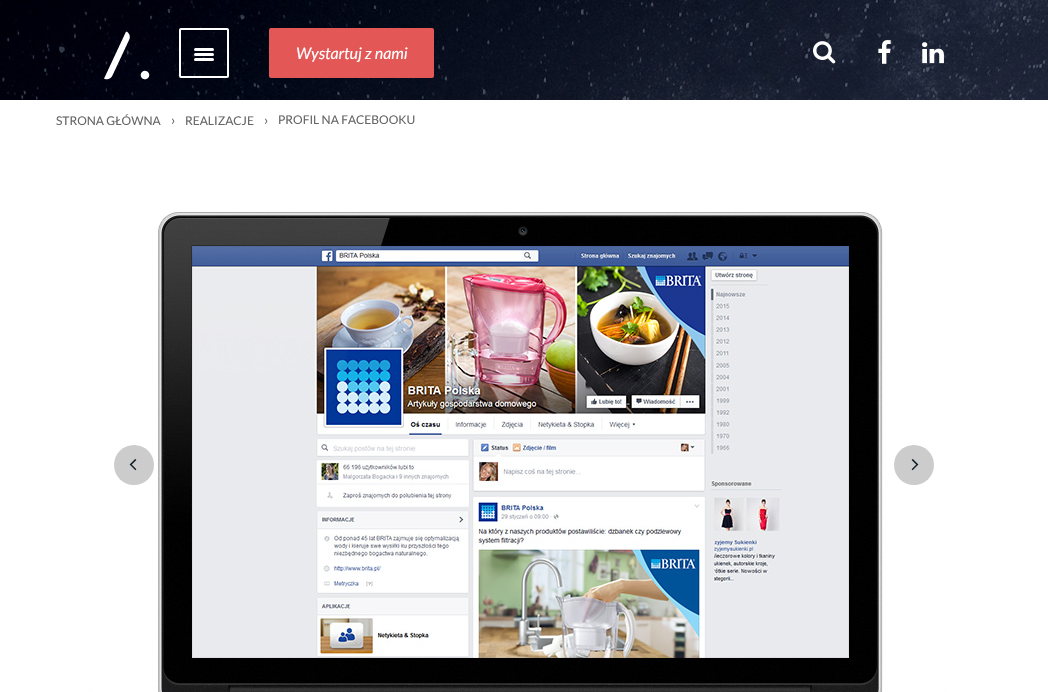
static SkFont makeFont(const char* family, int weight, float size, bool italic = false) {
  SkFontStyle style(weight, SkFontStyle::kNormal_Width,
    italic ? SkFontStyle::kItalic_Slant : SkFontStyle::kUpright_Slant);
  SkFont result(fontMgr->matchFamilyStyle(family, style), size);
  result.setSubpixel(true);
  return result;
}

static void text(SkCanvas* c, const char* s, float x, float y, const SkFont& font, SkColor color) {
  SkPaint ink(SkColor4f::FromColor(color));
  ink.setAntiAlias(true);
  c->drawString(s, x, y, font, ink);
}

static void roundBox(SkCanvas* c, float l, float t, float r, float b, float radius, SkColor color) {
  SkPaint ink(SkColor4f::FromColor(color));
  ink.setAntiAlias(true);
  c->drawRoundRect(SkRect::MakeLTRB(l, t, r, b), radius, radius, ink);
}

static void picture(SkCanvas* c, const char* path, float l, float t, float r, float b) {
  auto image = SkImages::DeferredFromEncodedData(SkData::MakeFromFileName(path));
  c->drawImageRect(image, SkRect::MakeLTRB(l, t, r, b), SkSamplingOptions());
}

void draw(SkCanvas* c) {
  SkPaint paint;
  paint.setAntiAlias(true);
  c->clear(0xffffffff);
  picture(c, "img_01.png", 0, 0, 1048, 100);
  picture(c, "img_02.png", 104, 31, 150, 80);
  paint.setStyle(SkPaint::kStroke_Style);
  paint.setStrokeWidth(2);
  paint.setColor(0xffffffff);
  c->drawRoundRect(SkRect::MakeLTRB(180, 29, 228, 77), 1, 1, paint);
  roundBox(c, 194, 48, 214, 51, 1.5f, 0xffffffff);
  roundBox(c, 194, 53, 214, 56, 1.5f, 0xffffffff);
  roundBox(c, 194, 58, 214, 61, 1.5f, 0xffffffff);
  roundBox(c, 269, 28, 434, 78, 2, 0xffe35757);
  SkFont face1 = makeFont("Lato", 400, 16, true);
  text(c, "Wystartuj z nami", 296, 59, face1, 0xffffffff);
  picture(c, "img_03.png", 813, 41, 836, 64);
  picture(c, "img_04.png", 878, 40, 891, 64);
  picture(c, "img_05.png", 922, 42, 944, 64);
  SkFont face2 = makeFont("Lato", 400, 12);
  text(c, "STRONA GŁÓWNA", 56, 125, face2, 0xff666666);
  SkFont face3 = makeFont("Lato", 400, 14);
  text(c, "›", 171, 125, face3, 0xff666666);
  text(c, "REALIZACJE", 185, 125, face2, 0xff666666);
  text(c, "›", 264, 125, face3, 0xff666666);
  text(c, "PROFIL NA FACEBOOKU", 278, 124, face2, 0xff666666);
  picture(c, "img_06.png", 88, 212, 948, 692);
  paint.setStyle(SkPaint::kFill_Style);
  paint.setColor(0xffcccccc);
  c->drawCircle(134, 465, 20, paint);
  picture(c, "img_07.png", 129, 459, 137, 471);
  c->drawCircle(914, 465, 20, paint);
  picture(c, "img_08.png", 911, 459, 919, 471);
}
